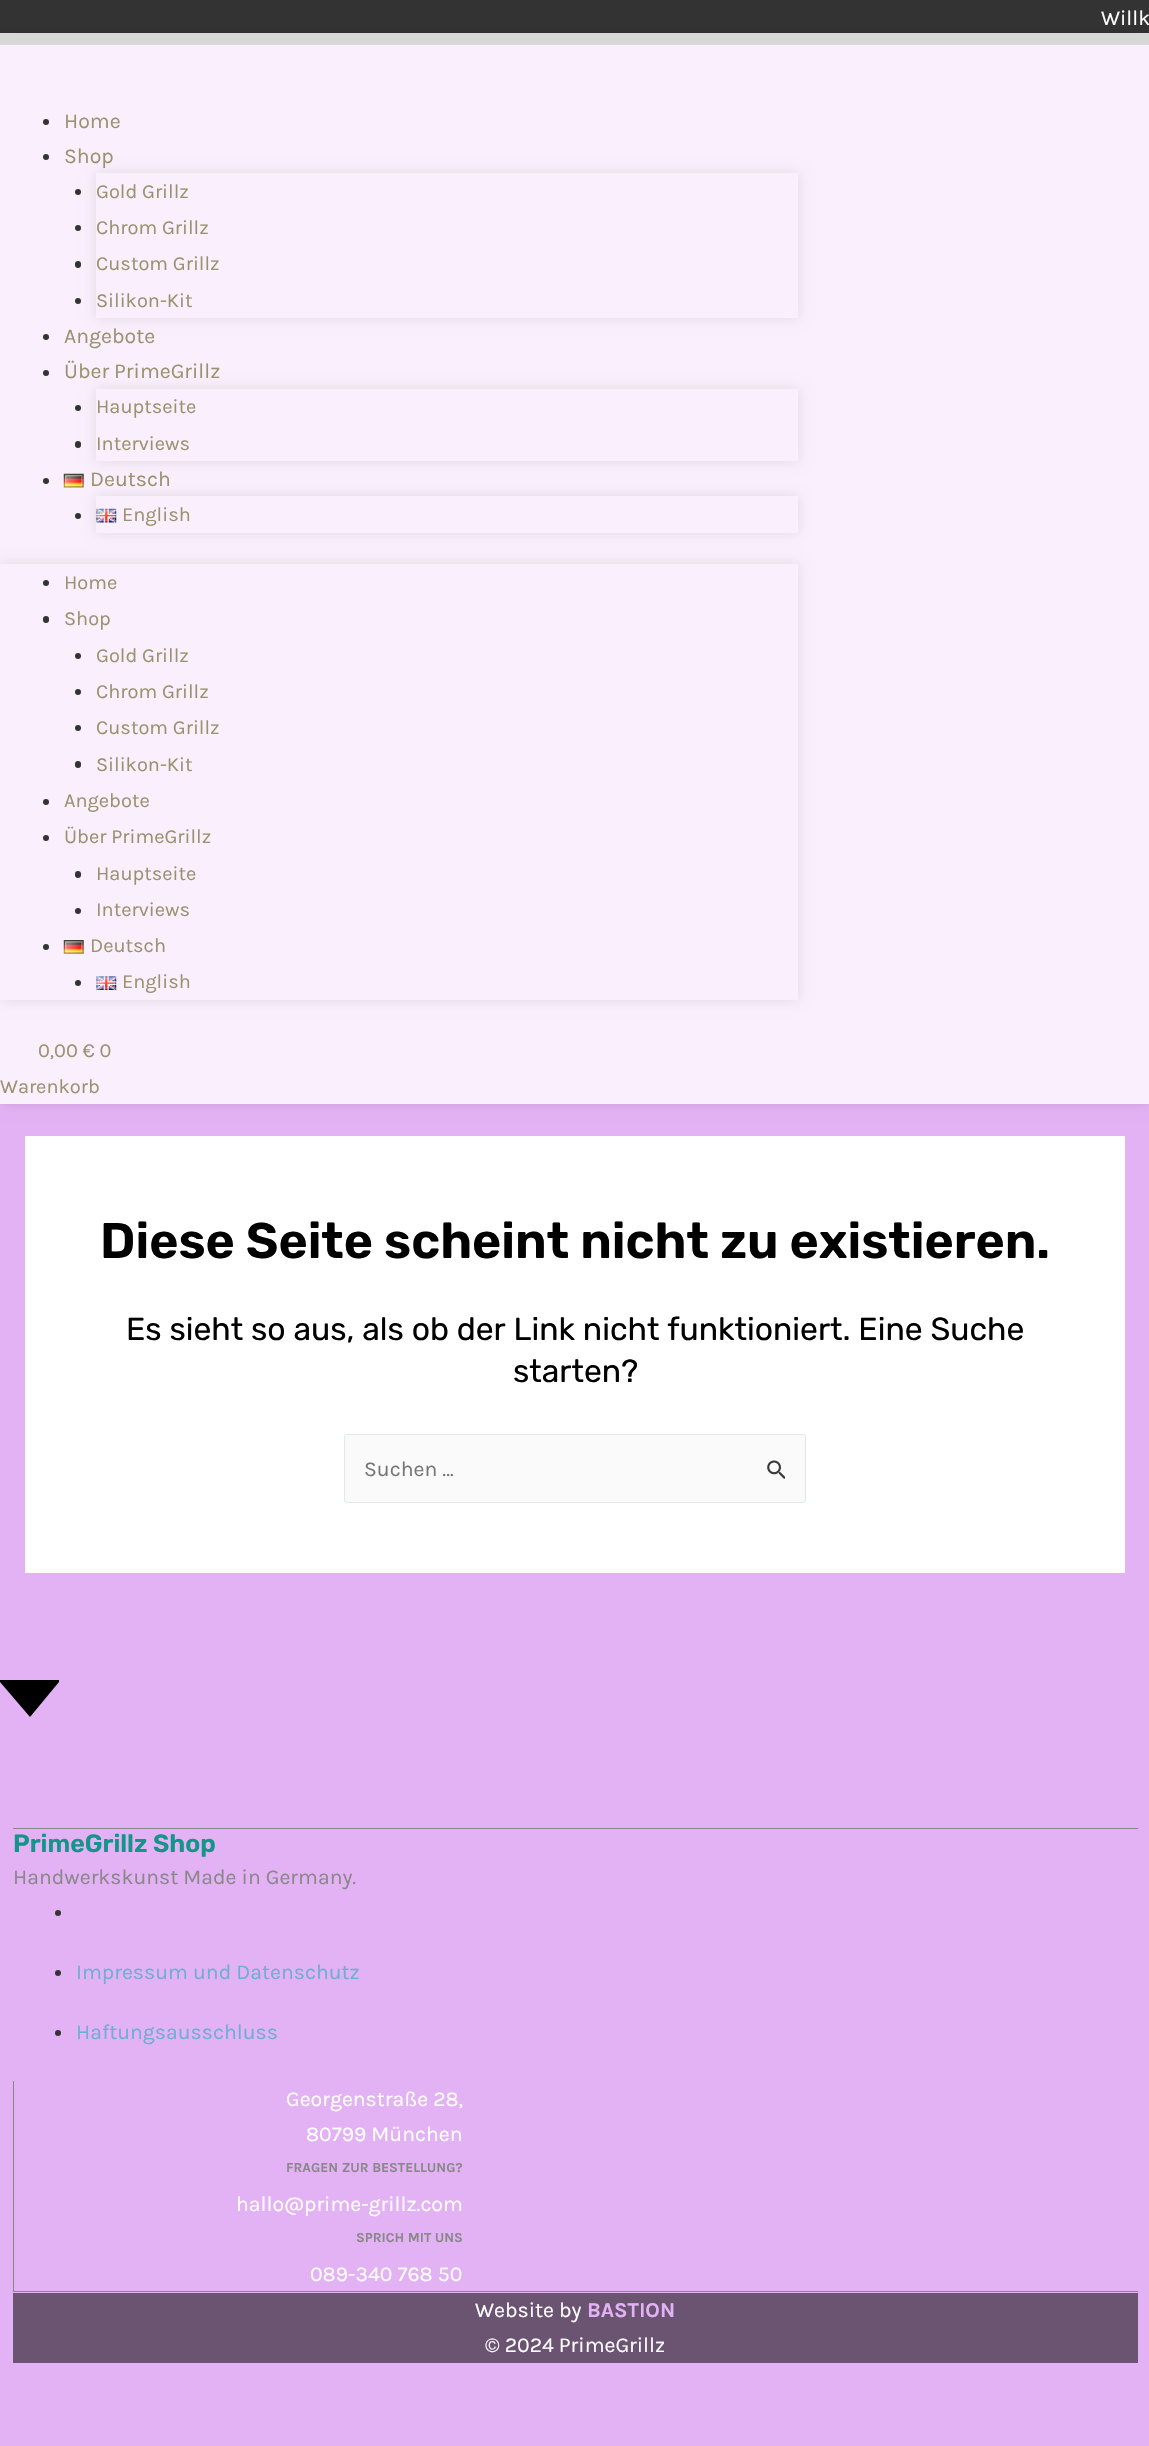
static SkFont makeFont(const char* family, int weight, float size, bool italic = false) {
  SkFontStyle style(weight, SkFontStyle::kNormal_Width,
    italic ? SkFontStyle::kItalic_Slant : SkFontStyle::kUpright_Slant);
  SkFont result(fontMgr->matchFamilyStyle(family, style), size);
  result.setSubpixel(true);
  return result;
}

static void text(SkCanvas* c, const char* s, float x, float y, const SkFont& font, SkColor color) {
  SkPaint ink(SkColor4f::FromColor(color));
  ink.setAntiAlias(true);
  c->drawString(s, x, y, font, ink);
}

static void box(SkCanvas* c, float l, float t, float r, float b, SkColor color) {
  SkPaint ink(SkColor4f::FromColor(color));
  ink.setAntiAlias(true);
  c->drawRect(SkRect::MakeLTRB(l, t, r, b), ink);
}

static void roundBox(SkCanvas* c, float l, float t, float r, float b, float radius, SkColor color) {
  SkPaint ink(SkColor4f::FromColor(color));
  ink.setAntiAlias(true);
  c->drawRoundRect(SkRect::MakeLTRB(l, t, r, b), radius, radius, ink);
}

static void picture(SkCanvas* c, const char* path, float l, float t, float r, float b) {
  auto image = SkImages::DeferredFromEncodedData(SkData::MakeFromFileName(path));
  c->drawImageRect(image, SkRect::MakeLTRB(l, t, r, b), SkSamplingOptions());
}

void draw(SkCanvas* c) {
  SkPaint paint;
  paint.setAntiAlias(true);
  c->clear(0xffe3b2f4);
  box(c, 0, 0, 1149, 45, 0xff333333);
  c->save();
  c->clipPath(SkPathBuilder(SkPathFillType::kEvenOdd).moveTo(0, 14).lineTo(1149, 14).lineTo(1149, 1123).lineTo(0, 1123).close().moveTo(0, 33).lineTo(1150, 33).lineTo(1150, 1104).lineTo(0, 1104).close().detach(), true);
  paint.setColor(0x1a000000);
  paint.setMaskFilter(SkMaskFilter::MakeBlur(kNormal_SkBlurStyle, 6));
  c->drawRect(SkRect::MakeLTRB(0, 33, 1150, 1104), paint);
  paint.setMaskFilter(nullptr);
  c->restore();
  SkFont face1 = makeFont("Karla", 400, 21.25f);
  text(c, "Willk", 1101, 25, face1, 0xffffffff);
  box(c, 0, 33, 1149, 1104, 0xccffffff);
  paint.setColor(0xff333333);
  c->drawCircle(46, 122, 3, paint);
  text(c, "Home", 64, 128, face1, 0xff9a926e);
  c->drawCircle(46, 157, 3, paint);
  c->save();
  c->clipPath(SkPathBuilder(SkPathFillType::kEvenOdd).moveTo(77, 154).lineTo(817, 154).lineTo(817, 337).lineTo(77, 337).close().moveTo(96, 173).lineTo(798, 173).lineTo(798, 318).lineTo(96, 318).close().detach(), true);
  paint.setColor(0x1a000000);
  paint.setMaskFilter(SkMaskFilter::MakeBlur(kNormal_SkBlurStyle, 6));
  c->drawRect(SkRect::MakeLTRB(96, 173, 798, 318), paint);
  paint.setMaskFilter(nullptr);
  c->restore();
  text(c, "Shop", 64, 163, face1, 0xff9a926e);
  paint.setColor(0xff333333);
  c->drawCircle(78, 192, 3, paint);
  SkFont face2 = makeFont("Karla", 400, 20);
  text(c, "Gold Grillz", 96, 198, face2, 0xff9a926e);
  c->drawCircle(78, 228, 3, paint);
  text(c, "Chrom Grillz", 96, 234, face2, 0xff9a926e);
  roundBox(c, 75, 261, 81, 268, 3, 0xff333333);
  text(c, "Custom Grillz", 96, 270, face2, 0xff9a926e);
  c->drawCircle(78, 301, 3, paint);
  text(c, "Silikon-Kit", 96, 307, face2, 0xff9a926e);
  c->drawCircle(46, 337, 3, paint);
  text(c, "Angebote", 64, 343, face1, 0xff9a926e);
  c->drawCircle(46, 373, 3, paint);
  c->save();
  c->clipPath(SkPathBuilder(SkPathFillType::kEvenOdd).moveTo(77, 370).lineTo(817, 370).lineTo(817, 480).lineTo(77, 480).close().moveTo(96, 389).lineTo(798, 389).lineTo(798, 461).lineTo(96, 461).close().detach(), true);
  paint.setColor(0x1a000000);
  paint.setMaskFilter(SkMaskFilter::MakeBlur(kNormal_SkBlurStyle, 6));
  c->drawRect(SkRect::MakeLTRB(96, 389, 798, 461), paint);
  paint.setMaskFilter(nullptr);
  c->restore();
  text(c, "Über PrimeGrillz", 64, 378, face1, 0xff9a926e);
  paint.setColor(0xff333333);
  c->drawCircle(78, 408, 3, paint);
  text(c, "Hauptseite", 96, 413, face2, 0xff9a926e);
  roundBox(c, 75, 441, 81, 448, 3, 0xff333333);
  text(c, "Interviews", 96, 450, face2, 0xff9a926e);
  c->drawCircle(46, 481, 3, paint);
  c->save();
  c->clipPath(SkPathBuilder(SkPathFillType::kEvenOdd).moveTo(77, 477).lineTo(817, 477).lineTo(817, 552).lineTo(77, 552).close().moveTo(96, 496).lineTo(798, 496).lineTo(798, 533).lineTo(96, 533).close().detach(), true);
  paint.setColor(0x1a000000);
  paint.setMaskFilter(SkMaskFilter::MakeBlur(kNormal_SkBlurStyle, 6));
  c->drawRect(SkRect::MakeLTRB(96, 496, 798, 533), paint);
  paint.setMaskFilter(nullptr);
  c->restore();
  picture(c, "img_01.png", 63, 473, 84, 488);
  text(c, "Deutsch", 90, 486, face1, 0xff9a926e);
  paint.setColor(0xff333333);
  c->drawCircle(78, 516, 3, paint);
  picture(c, "img_02.png", 96, 508, 117, 523);
  text(c, "English", 122, 521, face2, 0xff9a926e);
  c->save();
  c->clipPath(SkPathBuilder(SkPathFillType::kEvenOdd).moveTo(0, 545).lineTo(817, 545).lineTo(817, 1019).lineTo(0, 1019).close().moveTo(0, 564).lineTo(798, 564).lineTo(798, 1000).lineTo(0, 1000).close().detach(), true);
  paint.setColor(0x1a000000);
  paint.setMaskFilter(SkMaskFilter::MakeBlur(kNormal_SkBlurStyle, 6));
  c->drawRect(SkRect::MakeLTRB(0, 564, 798, 1000), paint);
  paint.setMaskFilter(nullptr);
  c->restore();
  paint.setColor(0xff333333);
  c->drawCircle(46, 583, 3, paint);
  text(c, "Home", 64, 589, face2, 0xff9a926e);
  roundBox(c, 43, 616, 49, 623, 3, 0xff333333);
  text(c, "Shop", 64, 625, face2, 0xff9a926e);
  c->drawCircle(78, 656, 3, paint);
  text(c, "Gold Grillz", 96, 662, face2, 0xff9a926e);
  c->drawCircle(78, 692, 3, paint);
  text(c, "Chrom Grillz", 96, 698, face2, 0xff9a926e);
  c->drawCircle(78, 728, 3, paint);
  text(c, "Custom Grillz", 96, 734, face2, 0xff9a926e);
  roundBox(c, 75, 761, 81, 768, 3, 0xff333333);
  text(c, "Silikon-Kit", 96, 771, face2, 0xff9a926e);
  c->drawCircle(46, 802, 3, paint);
  text(c, "Angebote", 64, 807, face2, 0xff9a926e);
  c->drawCircle(46, 838, 3, paint);
  text(c, "Über PrimeGrillz", 64, 843, face2, 0xff9a926e);
  roundBox(c, 75, 871, 81, 878, 3, 0xff333333);
  text(c, "Hauptseite", 96, 880, face2, 0xff9a926e);
  c->drawCircle(78, 911, 3, paint);
  text(c, "Interviews", 96, 916, face2, 0xff9a926e);
  c->drawCircle(46, 947, 3, paint);
  picture(c, "img_03.png", 63, 940, 84, 954);
  text(c, "Deutsch", 90, 952, face2, 0xff9a926e);
  c->drawCircle(78, 983, 3, paint);
  picture(c, "img_04.png", 96, 976, 117, 990);
  text(c, "English", 122, 988, face2, 0xff9a926e);
  text(c, "0,00 € 0", 38, 1057, face2, 0xff9a926e);
  text(c, "Warenkorb", 0, 1093, face2, 0xff9a926e);
  box(c, 25, 1136, 1125, 1573, 0xffffffff);
  SkFont face3 = makeFont("Rubik", 600, 50);
  text(c, "Diese Seite scheint nicht zu existieren.", 100, 1258, face3, 0xff010101);
  SkFont face4 = makeFont("Rubik", 400, 31.9f);
  text(c, "Es sieht so aus, als ob der Link nicht funktioniert. Eine Suche", 126, 1340, face4, 0xff010101);
  text(c, "starten?", 513, 1382, face4, 0xff010101);
  paint.setColor(0xfffafafa);
  c->drawRoundRect(SkRect::MakeLTRB(344.5f, 1434.5f, 805.5f, 1502.5f), 2, 2, paint);
  paint.setStyle(SkPaint::kStroke_Style);
  paint.setStrokeWidth(1);
  paint.setColor(0xffe2e8f0);
  c->drawRoundRect(SkRect::MakeLTRB(344.5f, 1434.5f, 805.5f, 1502.5f), 2, 2, paint);
  text(c, "Suchen …", 364, 1476, face1, 0xff757575);
  picture(c, "img_05.png", 767, 1460, 785, 1479);
  paint.setStyle(SkPaint::kFill_Style);
  paint.setColor(0xff000000);
  c->drawPath(SkPathBuilder().moveTo(30, 1717).lineTo(0, 1682).lineTo(0, 1680).lineTo(59, 1680).lineTo(59, 1682).close().detach(), paint);
  box(c, 13, 1828, 1138, 1829, 0xff888888);
  SkFont face5 = makeFont("Rubik", 600, 25);
  text(c, "PrimeGrillz Shop", 13, 1852, face5, 0xff14958a);
  text(c, "Handwerkskunst Made in Germany.", 13, 1884, face1, 0xff888888);
  paint.setColor(0xff333333);
  c->drawCircle(58, 1913, 3, paint);
  c->drawCircle(58, 1973, 3, paint);
  text(c, "Impressum und Datenschutz", 76, 1979, face1, 0xff6dafd0);
  c->drawCircle(58, 2033, 3, paint);
  text(c, "Haftungsausschluss", 76, 2039, face1, 0xff6dafd0);
  box(c, 13, 2081, 14, 2291, 0xff888888);
  text(c, "Georgenstraße 28,", 286, 2106, face1, 0xffffffff);
  text(c, "80799 München", 306, 2141, face1, 0xffffffff);
  SkFont face6 = makeFont("Karla", 700, 13.75f);
  text(c, "FRAGEN ZUR BESTELLUNG?", 286, 2172, face6, 0xff888888);
  text(c, "hallo@prime-grillz.com", 236, 2211, face1, 0xffffffff);
  text(c, "SPRICH MIT UNS", 356, 2242, face6, 0xff888888);
  text(c, "089-340 768 50", 310, 2281, face1, 0xffffffff);
  box(c, 13, 2291, 1138, 2292, 0xff888888);
  box(c, 13, 2293, 1138, 2363, 0xff6b5472);
  text(c, "Website by", 475, 2317, face1, 0xffffffff);
  SkFont face7 = makeFont("Karla", 700, 21.25f);
  text(c, "BASTION", 587, 2317, face7, 0xffe3b2f4);
  text(c, "© 2024 PrimeGrillz", 485, 2352, face1, 0xffffffff);
}
